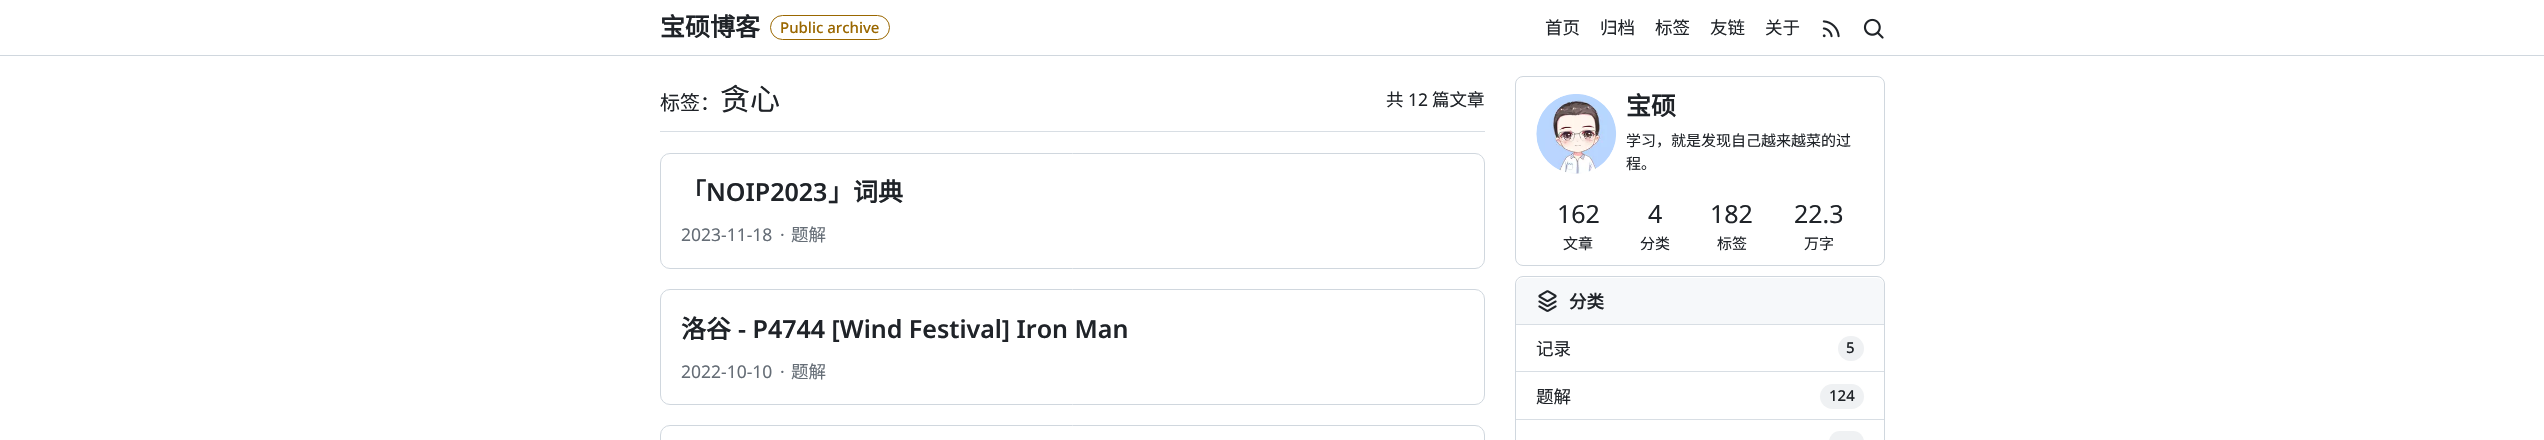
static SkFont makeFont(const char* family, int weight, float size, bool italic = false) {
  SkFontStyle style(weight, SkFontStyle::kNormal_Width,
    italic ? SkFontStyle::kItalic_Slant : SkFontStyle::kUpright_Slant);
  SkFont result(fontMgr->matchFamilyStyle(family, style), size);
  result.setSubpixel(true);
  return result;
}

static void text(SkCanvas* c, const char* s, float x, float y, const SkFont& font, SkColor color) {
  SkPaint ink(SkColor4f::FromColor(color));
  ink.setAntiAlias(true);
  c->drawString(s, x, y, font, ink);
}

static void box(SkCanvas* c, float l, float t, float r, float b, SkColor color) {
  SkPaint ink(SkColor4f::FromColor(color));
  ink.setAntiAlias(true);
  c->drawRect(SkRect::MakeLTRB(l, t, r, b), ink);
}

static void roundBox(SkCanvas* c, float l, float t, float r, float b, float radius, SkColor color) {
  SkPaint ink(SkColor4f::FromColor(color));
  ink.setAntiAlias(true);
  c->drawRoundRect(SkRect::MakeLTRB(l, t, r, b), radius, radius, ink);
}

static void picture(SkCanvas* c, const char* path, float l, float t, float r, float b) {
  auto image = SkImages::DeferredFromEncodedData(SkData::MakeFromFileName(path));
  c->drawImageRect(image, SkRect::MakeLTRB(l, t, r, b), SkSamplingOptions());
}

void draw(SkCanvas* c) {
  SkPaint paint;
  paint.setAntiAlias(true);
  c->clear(0xffffffff);
  box(c, 0, 55, 2544, 56, 0xffd0d7de);
  SkFont face1 = makeFont("Noto Sans CJK SC", 700, 25);
  text(c, "宝硕博客", 660, 36, face1, 0xff1f2328);
  paint.setStyle(SkPaint::kStroke_Style);
  paint.setStrokeWidth(1);
  paint.setColor(0xff9a6700);
  c->drawRoundRect(SkRect::MakeLTRB(770.5f, 15.5f, 889.5f, 39.5f), 12, 12, paint);
  SkFont face2 = makeFont("Noto Sans", 500, 15);
  text(c, "Public archive", 780, 33, face2, 0xff9a6700);
  SkFont face3 = makeFont("Noto Sans CJK SC", 400, 17.5f);
  text(c, "首页", 1545, 34, face3, 0xff1f2328);
  text(c, "归档", 1600, 34, face3, 0xff1f2328);
  text(c, "标签", 1655, 34, face3, 0xff1f2328);
  text(c, "友链", 1710, 34, face3, 0xff1f2328);
  text(c, "关于", 1765, 34, face3, 0xff1f2328);
  picture(c, "img_01.png", 1822, 20, 1840, 38);
  picture(c, "img_02.png", 1863, 18, 1884, 39);
  box(c, 660, 131, 1485, 132, 0xffd8dee4);
  SkFont face4 = makeFont("Noto Sans CJK SC", 400, 20);
  text(c, "标签：", 660, 110, face4, 0xff1f2328);
  SkFont face5 = makeFont("Noto Sans CJK SC", 400, 30);
  text(c, "贪心", 720, 110, face5, 0xff1f2328);
  text(c, "共", 1386, 106, face3, 0xff1f2328);
  SkFont face6 = makeFont("Noto Sans", 400, 17.5f);
  text(c, "12", 1408, 106, face6, 0xff1f2328);
  text(c, "篇文章", 1432, 106, face3, 0xff1f2328);
  paint.setColor(0xffd0d7de);
  c->drawRoundRect(SkRect::MakeLTRB(660.5f, 153.5f, 1484.5f, 268.5f), 9.5f, 9.5f, paint);
  text(c, "「", 681, 201, face1, 0xff1f2328);
  SkFont face7 = makeFont("Noto Sans", 600, 25);
  text(c, "NOIP2023", 706, 201, face7, 0xff1f2328);
  text(c, "」词典", 828, 201, face1, 0xff1f2328);
  text(c, "2023-11-18", 681, 241, face6, 0xff656d76);
  text(c, "·", 780, 241, face6, 0xff656d76);
  text(c, "题解", 791, 241, face3, 0xff656d76);
  c->drawRoundRect(SkRect::MakeLTRB(660.5f, 289.5f, 1484.5f, 404.5f), 9.5f, 9.5f, paint);
  text(c, "洛谷", 681, 338, face1, 0xff1f2328);
  text(c, "- P4744 [Wind Festival] Iron Man", 738, 338, face7, 0xff1f2328);
  text(c, "2022-10-10", 681, 378, face6, 0xff656d76);
  text(c, "·", 780, 378, face6, 0xff656d76);
  text(c, "题解", 791, 378, face3, 0xff656d76);
  c->drawRoundRect(SkRect::MakeLTRB(660.5f, 425.5f, 1484.5f, 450.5f), 9.5f, 9.5f, paint);
  c->drawRoundRect(SkRect::MakeLTRB(1515.5f, 76.5f, 1884.5f, 265.5f), 7.5f, 7.5f, paint);
  picture(c, "img_03.png", 1536, 94, 1617, 174);
  text(c, "宝硕", 1626, 115, face1, 0xff1f2328);
  SkFont face8 = makeFont("Noto Sans CJK SC", 400, 15);
  text(c, "学习，就是发现自己越来越菜的过", 1626, 146, face8, 0xff1f2328);
  text(c, "程。", 1626, 169, face8, 0xff1f2328);
  SkFont face9 = makeFont("Noto Sans", 400, 25);
  text(c, "162", 1557, 223, face9, 0xff1f2328);
  text(c, "文章", 1563, 249, face8, 0xff1f2328);
  text(c, "4", 1648, 223, face9, 0xff1f2328);
  text(c, "分类", 1640, 249, face8, 0xff1f2328);
  text(c, "182", 1710, 223, face9, 0xff1f2328);
  text(c, "标签", 1717, 249, face8, 0xff1f2328);
  text(c, "22.3", 1794, 223, face9, 0xff1f2328);
  text(c, "万字", 1804, 249, face8, 0xff1f2328);
  c->drawRoundRect(SkRect::MakeLTRB(1515.5f, 276.5f, 1884.5f, 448.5f), 7.5f, 7.5f, paint);
  paint.setStyle(SkPaint::kFill_Style);
  paint.setColor(0xfff6f8fa);
  c->drawPath(SkPathBuilder().moveTo(1524, 278).lineTo(1876, 278).cubicTo(1880.5f, 278, 1884, 281.5f, 1884, 286).lineTo(1884, 325).lineTo(1516, 325).lineTo(1516, 286).cubicTo(1516, 281.5f, 1519.5f, 278, 1524, 278).close().detach(), paint);
  box(c, 1516, 324, 1884, 325, 0xffd8dee4);
  picture(c, "img_04.png", 1538, 290, 1557, 312);
  SkFont face10 = makeFont("Noto Sans CJK SC", 700, 17.5f);
  text(c, "分类", 1569, 308, face10, 0xff1f2328);
  box(c, 1516, 371, 1884, 372, 0xffd8dee4);
  text(c, "记录", 1536, 355, face3, 0xff1f2328);
  roundBox(c, 1838, 336, 1864, 361, 12.5f, 0xffeff1f3);
  text(c, "5", 1846, 353, face2, 0xff1f2328);
  box(c, 1516, 419, 1884, 420, 0xffd8dee4);
  text(c, "题解", 1536, 403, face3, 0xff1f2328);
  roundBox(c, 1820, 384, 1864, 409, 12.5f, 0xffeff1f3);
  text(c, "124", 1829, 401, face2, 0xff1f2328);
  roundBox(c, 1829, 431, 1864, 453, 12.5f, 0xffeff1f3);
}
